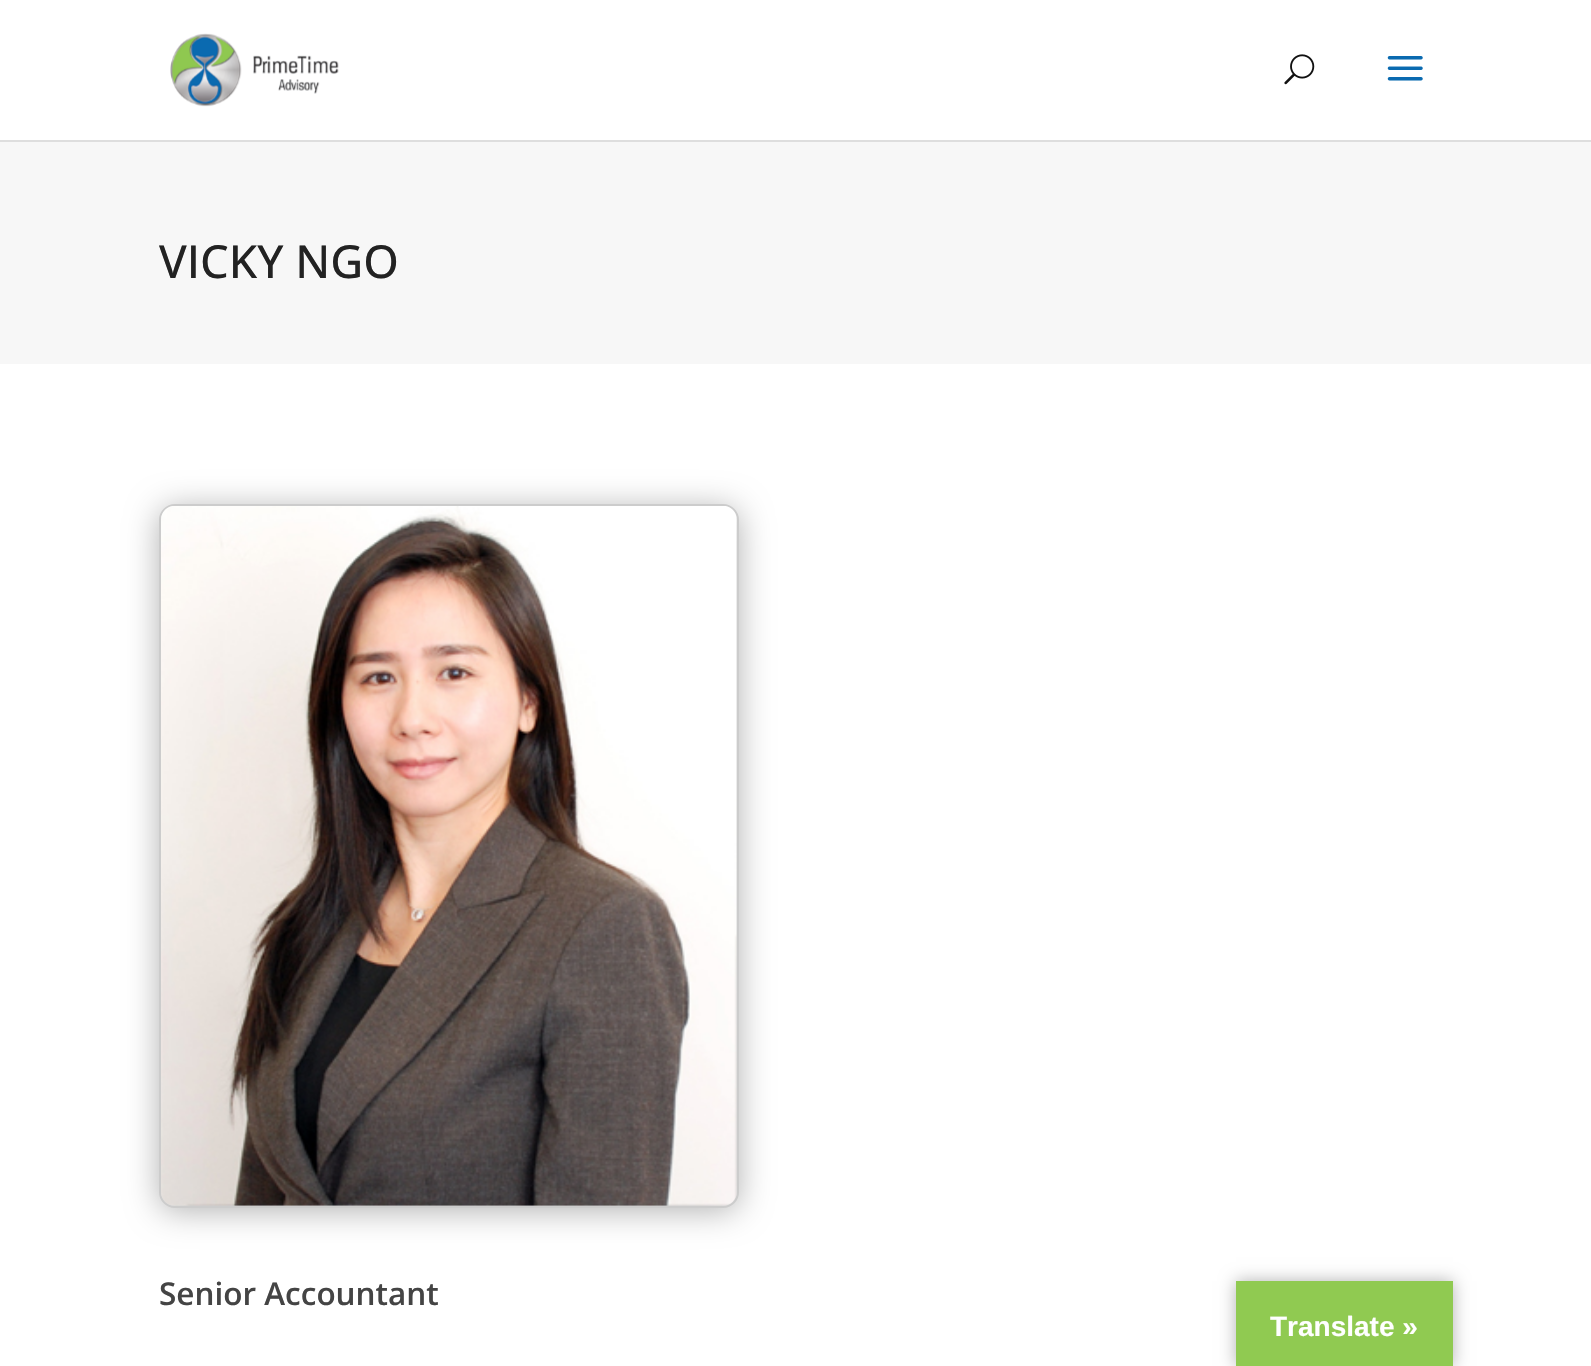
static SkFont makeFont(const char* family, int weight, float size, bool italic = false) {
  SkFontStyle style(weight, SkFontStyle::kNormal_Width,
    italic ? SkFontStyle::kItalic_Slant : SkFontStyle::kUpright_Slant);
  SkFont result(fontMgr->matchFamilyStyle(family, style), size);
  result.setSubpixel(true);
  return result;
}

static void text(SkCanvas* c, const char* s, float x, float y, const SkFont& font, SkColor color) {
  SkPaint ink(SkColor4f::FromColor(color));
  ink.setAntiAlias(true);
  c->drawString(s, x, y, font, ink);
}

static void box(SkCanvas* c, float l, float t, float r, float b, SkColor color) {
  SkPaint ink(SkColor4f::FromColor(color));
  ink.setAntiAlias(true);
  c->drawRect(SkRect::MakeLTRB(l, t, r, b), ink);
}

static void picture(SkCanvas* c, const char* path, float l, float t, float r, float b) {
  auto image = SkImages::DeferredFromEncodedData(SkData::MakeFromFileName(path));
  c->drawImageRect(image, SkRect::MakeLTRB(l, t, r, b), SkSamplingOptions());
}

void draw(SkCanvas* c) {
  SkPaint paint;
  paint.setAntiAlias(true);
  c->clear(0xffffffff);
  paint.setColor(0xffdedede);
  c->drawPath(SkPathBuilder().moveTo(0, 140).lineTo(0, 142).lineTo(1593, 142).lineTo(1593, 2).lineTo(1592, 2).lineTo(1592, 140).close().detach(), paint);
  picture(c, "img_01.png", 170, 33, 339, 107);
  picture(c, "img_02.png", 1284, 54, 1315, 85);
  picture(c, "img_03.png", 1387, 56, 1423, 81);
  box(c, 0, 142, 1591, 364, 0xfff7f7f7);
  SkFont face1 = makeFont("Open Sans", 500, 45.5f);
  text(c, "VICKY NGO", 159, 278, face1, 0xff222222);
  paint.setColor(0x4d000000);
  paint.setMaskFilter(SkMaskFilter::MakeBlur(kNormal_SkBlurStyle, 16));
  c->drawRoundRect(SkRect::MakeLTRB(159, 508, 739, 1211), 16, 16, paint);
  paint.setMaskFilter(nullptr);
  paint.setStyle(SkPaint::kStroke_Style);
  paint.setStrokeWidth(2);
  paint.setColor(0xffcccccc);
  c->drawRoundRect(SkRect::MakeLTRB(160, 505, 738, 1207), 15, 15, paint);
  picture(c, "img_04.png", 161, 506, 737, 1206);
  SkFont face2 = makeFont("Open Sans", 600, 31.5f);
  text(c, "Senior Accountant", 159, 1305, face2, 0xff444444);
  paint.setStyle(SkPaint::kFill_Style);
  paint.setColor(0x4d000000);
  paint.setMaskFilter(SkMaskFilter::MakeBlur(kNormal_SkBlurStyle, 8));
  c->drawRect(SkRect::MakeLTRB(1236, 1281, 1453, 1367), paint);
  paint.setMaskFilter(nullptr);
  box(c, 1236, 1281, 1453, 1366, 0xff90ca51);
  SkFont face3 = makeFont("Liberation Sans", 700, 28);
  text(c, "Translate »", 1270, 1336, face3, 0xffffffff);
}
